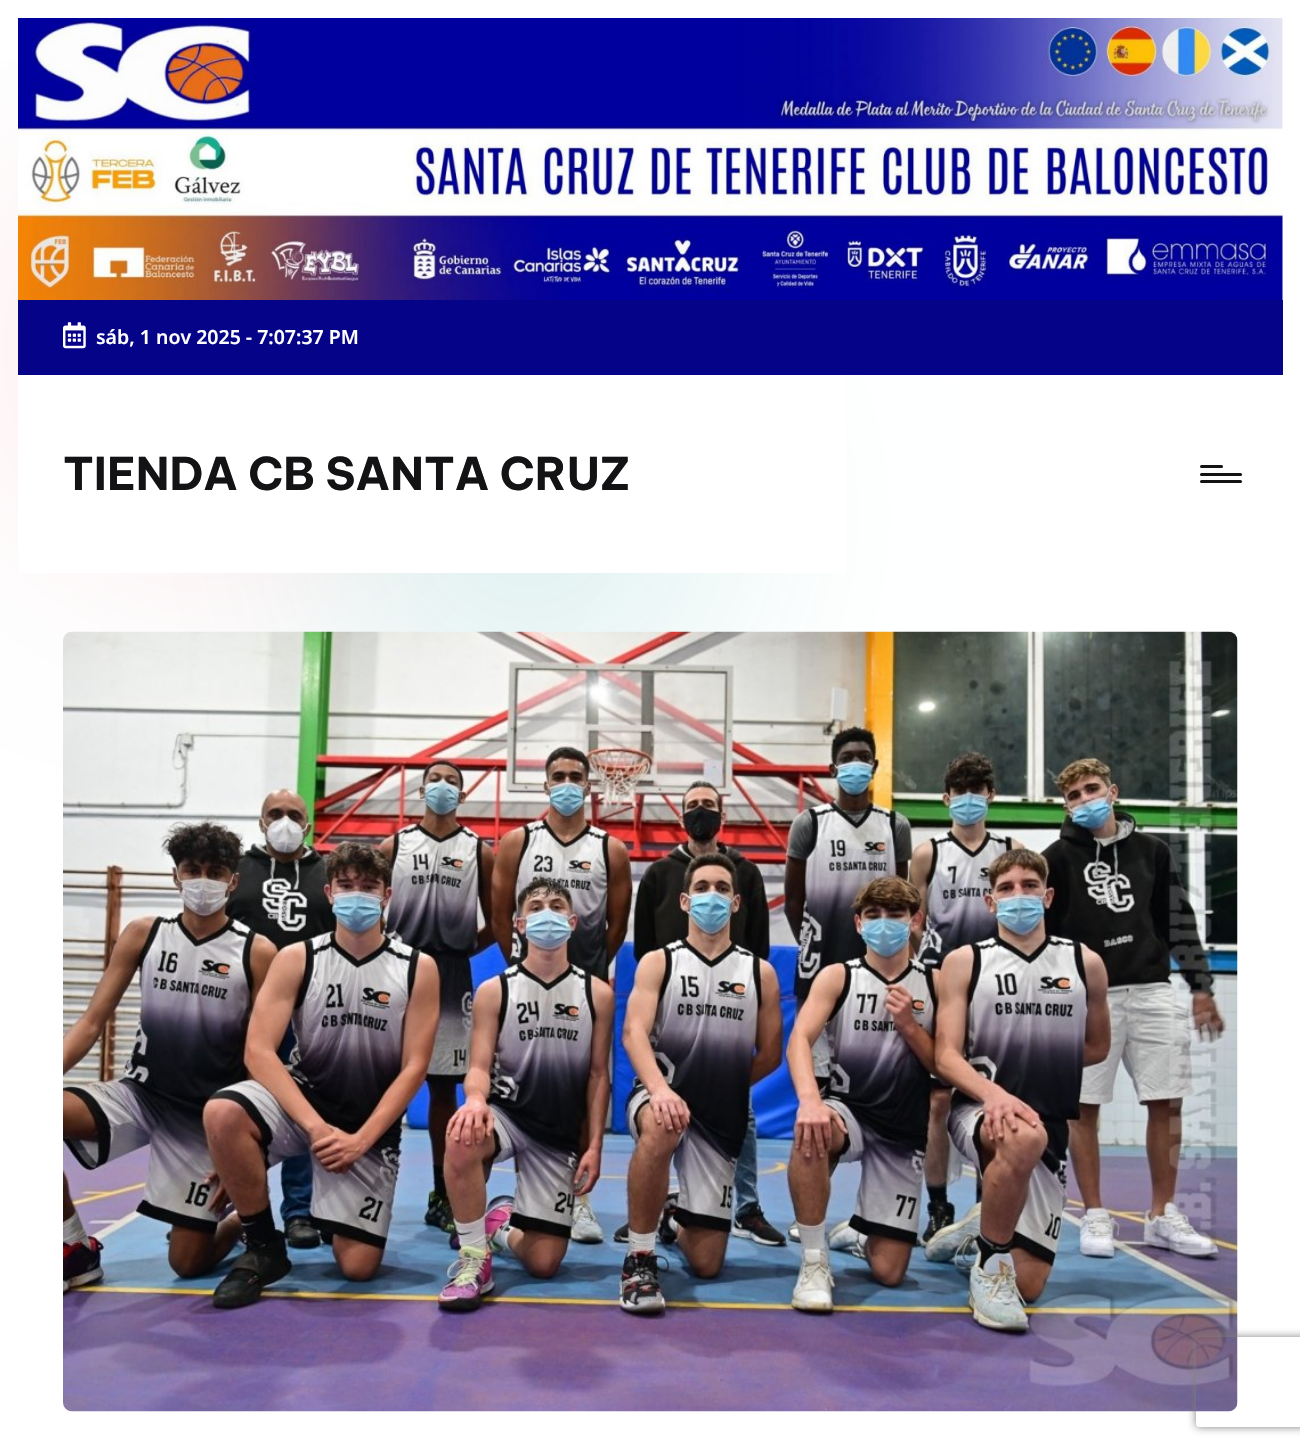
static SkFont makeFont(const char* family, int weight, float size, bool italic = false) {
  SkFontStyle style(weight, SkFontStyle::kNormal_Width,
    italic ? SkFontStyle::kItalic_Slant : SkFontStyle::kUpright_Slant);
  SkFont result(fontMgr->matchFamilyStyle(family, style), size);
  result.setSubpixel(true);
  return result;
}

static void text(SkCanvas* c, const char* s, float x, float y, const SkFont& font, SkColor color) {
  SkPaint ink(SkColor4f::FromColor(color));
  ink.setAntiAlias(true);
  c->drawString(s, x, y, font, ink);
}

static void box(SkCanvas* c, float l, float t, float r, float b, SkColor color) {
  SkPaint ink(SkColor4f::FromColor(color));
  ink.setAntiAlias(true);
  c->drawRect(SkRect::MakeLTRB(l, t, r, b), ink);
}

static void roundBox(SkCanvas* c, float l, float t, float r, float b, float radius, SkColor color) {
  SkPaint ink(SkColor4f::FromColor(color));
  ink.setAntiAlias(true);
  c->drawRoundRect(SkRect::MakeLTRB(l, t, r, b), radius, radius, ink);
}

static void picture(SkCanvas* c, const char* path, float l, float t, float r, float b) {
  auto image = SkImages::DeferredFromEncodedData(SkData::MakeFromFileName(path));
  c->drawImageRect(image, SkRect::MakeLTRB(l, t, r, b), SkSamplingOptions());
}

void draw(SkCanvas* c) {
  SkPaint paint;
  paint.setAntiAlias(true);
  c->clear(0xffffffff);
  c->save();
  c->clipRect(SkRect::MakeLTRB(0, 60, 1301, 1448));
  paint.setColor(0xfffeeaec);
  paint.setMaskFilter(SkMaskFilter::MakeBlur(kNormal_SkBlurStyle, 96));
  c->drawRoundRect(SkRect::MakeLTRB(0, 135, 432, 567), 216, 216, paint);
  paint.setMaskFilter(nullptr);
  c->restore();
  paint.setColor(0x1a04868b);
  paint.setMaskFilter(SkMaskFilter::MakeBlur(kNormal_SkBlurStyle, 96));
  c->drawRoundRect(SkRect::MakeLTRB(312, 300, 744, 732), 216, 216, paint);
  paint.setMaskFilter(nullptr);
  picture(c, "img_01.png", 63, 631, 1238, 1412);
  picture(c, "img_02.png", 18, 18, 1283, 300);
  box(c, 18, 300, 1283, 375, 0xfc020087);
  picture(c, "img_03.png", 63, 322, 86, 349);
  SkFont face1 = makeFont("Noto Sans", 600, 19.5f);
  text(c, "sáb, 1 nov 2025 - 7:07:37 PM", 96, 344, face1, 0xffffffff);
  box(c, 18, 375, 846, 573, 0xffffffff);
  SkFont face2 = makeFont("Be Vietnam Pro", 700, 45);
  text(c, "TIENDA CB SANTA CRUZ", 63, 490, face2, 0xff131315);
  roundBox(c, 1200, 473, 1242, 476, 1.5f, 0xff131315);
  roundBox(c, 1200, 465, 1223, 468, 1.5f, 0xff131315);
  roundBox(c, 1200, 480, 1242, 483, 1.5f, 0xff131315);
  c->save();
  c->clipPath(SkPathBuilder(SkPathFillType::kEvenOdd).moveTo(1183, 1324).lineTo(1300, 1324).lineTo(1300, 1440).lineTo(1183, 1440).close().moveTo(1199, 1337).lineTo(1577, 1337).cubicTo(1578.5f, 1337, 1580, 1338.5f, 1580, 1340).lineTo(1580, 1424).cubicTo(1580, 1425.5f, 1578.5f, 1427, 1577, 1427).lineTo(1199, 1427).cubicTo(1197.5f, 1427, 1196, 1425.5f, 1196, 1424).lineTo(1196, 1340).cubicTo(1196, 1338.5f, 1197.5f, 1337, 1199, 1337).close().detach(), true);
  paint.setColor(0xff808080);
  paint.setMaskFilter(SkMaskFilter::MakeBlur(kNormal_SkBlurStyle, 4));
  c->drawRoundRect(SkRect::MakeLTRB(1196, 1337, 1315, 1427), 3, 3, paint);
  paint.setMaskFilter(nullptr);
  c->restore();
}
